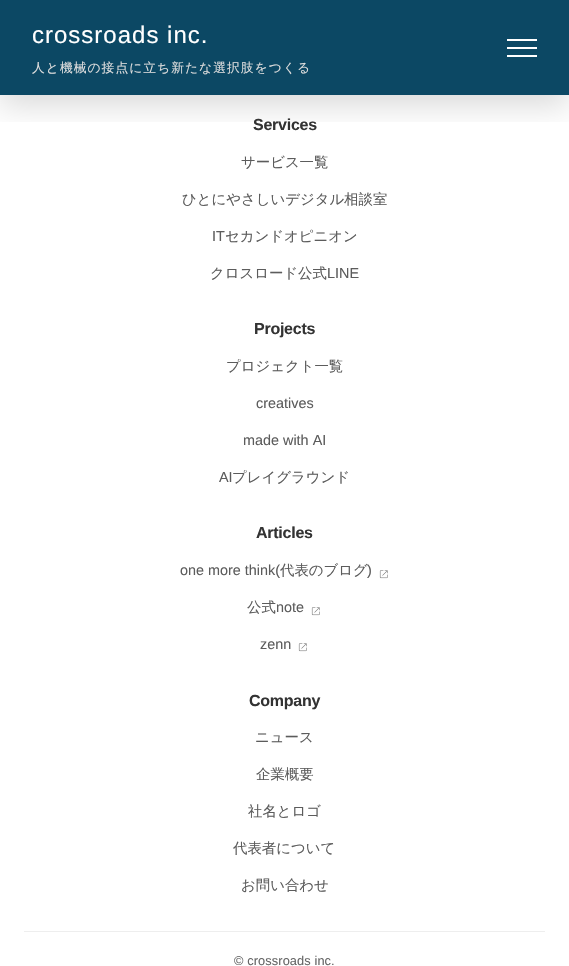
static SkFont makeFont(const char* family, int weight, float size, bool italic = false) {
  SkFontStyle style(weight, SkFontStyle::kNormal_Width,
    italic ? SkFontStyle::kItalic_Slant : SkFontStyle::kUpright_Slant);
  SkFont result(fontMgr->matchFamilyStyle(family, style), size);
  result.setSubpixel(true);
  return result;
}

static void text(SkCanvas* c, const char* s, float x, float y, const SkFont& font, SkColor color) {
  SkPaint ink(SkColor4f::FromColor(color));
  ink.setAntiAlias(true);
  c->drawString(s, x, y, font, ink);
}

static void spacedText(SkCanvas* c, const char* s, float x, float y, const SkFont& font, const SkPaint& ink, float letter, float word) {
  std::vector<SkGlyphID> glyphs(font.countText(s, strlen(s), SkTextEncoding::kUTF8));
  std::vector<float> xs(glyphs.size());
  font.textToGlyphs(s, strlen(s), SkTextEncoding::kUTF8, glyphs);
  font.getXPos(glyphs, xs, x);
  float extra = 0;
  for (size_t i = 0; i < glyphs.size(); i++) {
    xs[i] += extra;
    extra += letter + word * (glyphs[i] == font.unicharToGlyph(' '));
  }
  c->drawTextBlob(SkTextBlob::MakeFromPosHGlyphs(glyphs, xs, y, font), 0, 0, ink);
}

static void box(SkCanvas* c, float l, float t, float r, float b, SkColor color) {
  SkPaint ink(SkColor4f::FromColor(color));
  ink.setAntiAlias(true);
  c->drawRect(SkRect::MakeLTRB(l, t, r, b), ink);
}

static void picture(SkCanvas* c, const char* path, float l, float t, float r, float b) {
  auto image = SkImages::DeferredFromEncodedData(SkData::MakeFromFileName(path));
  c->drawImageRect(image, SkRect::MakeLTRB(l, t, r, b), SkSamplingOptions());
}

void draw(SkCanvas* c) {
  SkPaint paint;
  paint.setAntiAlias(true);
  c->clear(0xff0c4864);
  box(c, 0, 95, 569, 966, 0xffffffff);
  c->save();
  c->clipRect(SkRect::MakeLTRB(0, 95, 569, 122));
  paint.setColor(0x26000000);
  paint.setMaskFilter(SkMaskFilter::MakeBlur(kNormal_SkBlurStyle, 15));
  c->drawRect(SkRect::MakeLTRB(0, 10, 569, 105), paint);
  paint.setMaskFilter(nullptr);
  c->restore();
  SkFont face1 = makeFont("Liberation Sans", 400, 24);
  paint.setColor(0xffffffff);
  spacedText(c, "crossroads inc.", 32, 43, face1, paint, 1, 0);
  SkFont face2 = makeFont("WenQuanYi Zen Hei", 500, 12.8f);
  paint.setColor(0xffdddddd);
  spacedText(c, "人と機械の接点に立ち新たな選択肢をつくる", 32, 72, face2, paint, 1, 0);
  box(c, 507, 39, 537, 41, 0xffffffff);
  box(c, 507, 47, 537, 49, 0xffffffff);
  box(c, 507, 55, 537, 57, 0xffffffff);
  SkFont face3 = makeFont("Liberation Sans", 700, 16);
  paint.setColor(0xff333333);
  spacedText(c, "Services", 253, 130, face3, paint, -0.25f, 0);
  SkFont face4 = makeFont("WenQuanYi Zen Hei", 500, 14.4f);
  text(c, "サービス一覧", 241, 167, face4, 0xff5c5c5c);
  text(c, "ひとにやさしいデジタル相談室", 182, 204, face4, 0xff5c5c5c);
  SkFont face5 = makeFont("Liberation Sans", 400, 14.4f);
  text(c, "IT", 212, 241, face5, 0xff5c5c5c);
  text(c, "セカンドオピニオン", 225, 241, face4, 0xff5c5c5c);
  text(c, "クロスロード公式", 210, 278, face4, 0xff5c5c5c);
  text(c, "LINE", 327, 278, face5, 0xff5c5c5c);
  spacedText(c, "Projects", 254, 334, face3, paint, -0.25f, 0);
  text(c, "プロジェクト一覧", 226, 371, face4, 0xff5c5c5c);
  text(c, "creatives", 256, 408, face5, 0xff5c5c5c);
  text(c, "made with AI", 243, 445, face5, 0xff5c5c5c);
  text(c, "AI", 219, 482, face5, 0xff5c5c5c);
  text(c, "プレイグラウンド", 232, 482, face4, 0xff5c5c5c);
  spacedText(c, "Articles", 256, 538, face3, paint, -0.25f, 0);
  text(c, "one more think(", 180, 575, face5, 0xff5c5c5c);
  text(c, "代表のブログ", 280, 575, face4, 0xff5c5c5c);
  text(c, ")", 367, 575, face5, 0xff5c5c5c);
  picture(c, "img_01.png", 379, 570, 388, 579);
  text(c, "公式", 247, 612, face4, 0xff5c5c5c);
  text(c, "note", 276, 612, face5, 0xff5c5c5c);
  picture(c, "img_01.png", 311, 607, 320, 616);
  text(c, "zenn", 260, 649, face5, 0xff5c5c5c);
  picture(c, "img_01.png", 298, 643, 307, 652);
  spacedText(c, "Company", 249, 706, face3, paint, -0.25f, 0);
  text(c, "ニュース", 255, 742, face4, 0xff5c5c5c);
  text(c, "企業概要", 256, 779, face4, 0xff5c5c5c);
  text(c, "社名とロゴ", 248, 816, face4, 0xff5c5c5c);
  text(c, "代表者について", 233, 853, face4, 0xff5c5c5c);
  text(c, "お問い合わせ", 241, 890, face4, 0xff5c5c5c);
  box(c, 24, 931, 545, 932, 0xffeeeeee);
  SkFont face6 = makeFont("Liberation Sans", 400, 12.8f);
  paint.setColor(0xff666666);
  spacedText(c, "© crossroads inc.", 234, 965, face6, paint, 0.1f, 0);
}
